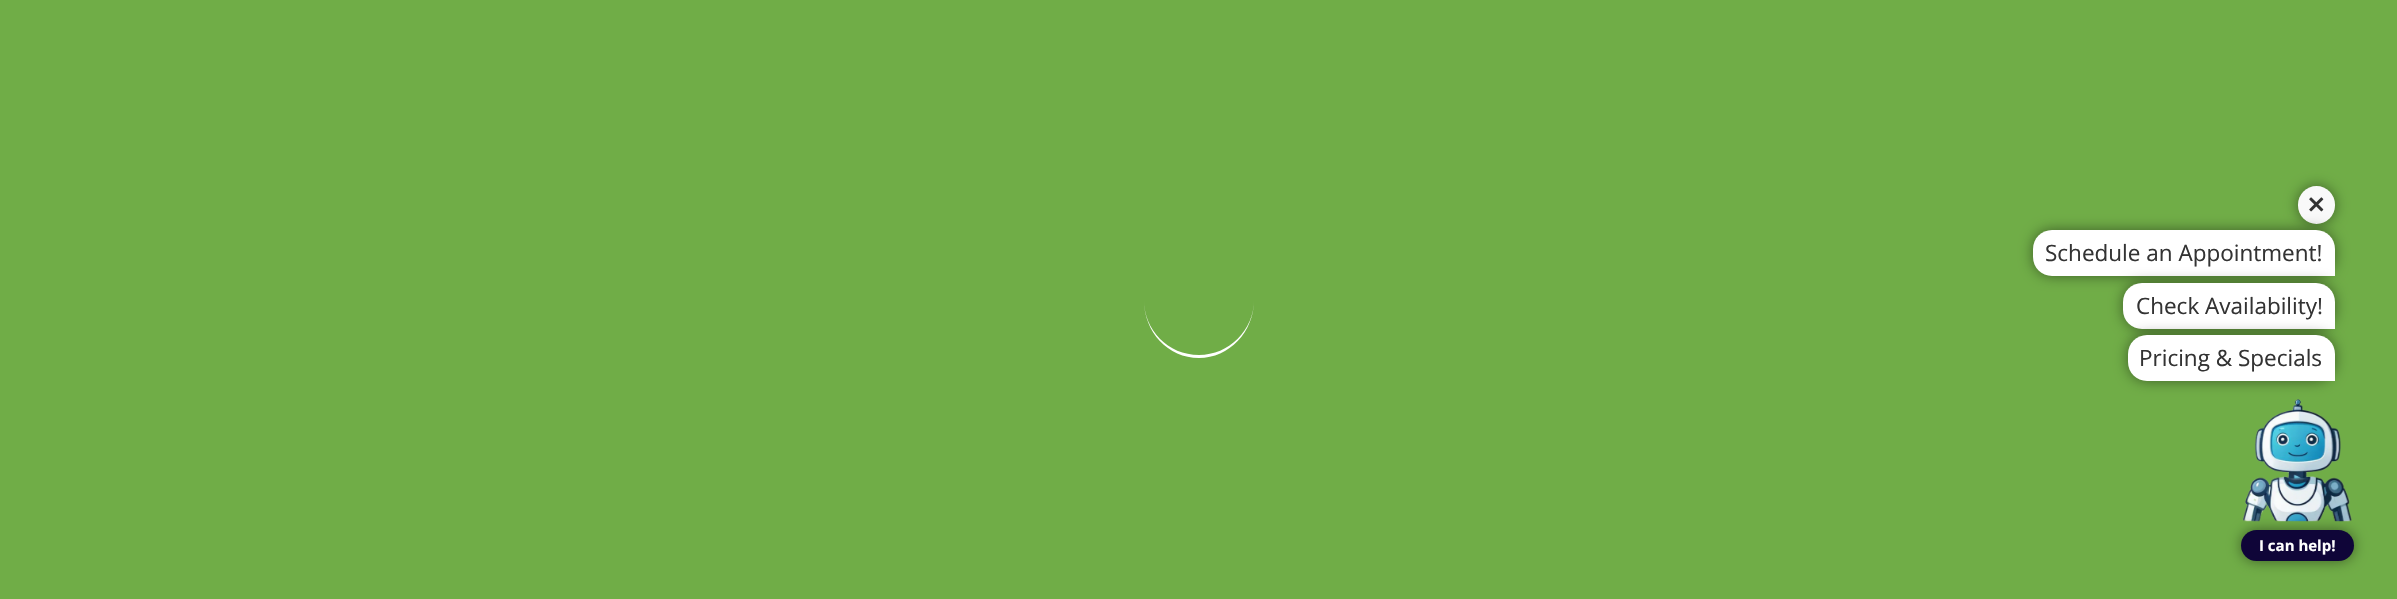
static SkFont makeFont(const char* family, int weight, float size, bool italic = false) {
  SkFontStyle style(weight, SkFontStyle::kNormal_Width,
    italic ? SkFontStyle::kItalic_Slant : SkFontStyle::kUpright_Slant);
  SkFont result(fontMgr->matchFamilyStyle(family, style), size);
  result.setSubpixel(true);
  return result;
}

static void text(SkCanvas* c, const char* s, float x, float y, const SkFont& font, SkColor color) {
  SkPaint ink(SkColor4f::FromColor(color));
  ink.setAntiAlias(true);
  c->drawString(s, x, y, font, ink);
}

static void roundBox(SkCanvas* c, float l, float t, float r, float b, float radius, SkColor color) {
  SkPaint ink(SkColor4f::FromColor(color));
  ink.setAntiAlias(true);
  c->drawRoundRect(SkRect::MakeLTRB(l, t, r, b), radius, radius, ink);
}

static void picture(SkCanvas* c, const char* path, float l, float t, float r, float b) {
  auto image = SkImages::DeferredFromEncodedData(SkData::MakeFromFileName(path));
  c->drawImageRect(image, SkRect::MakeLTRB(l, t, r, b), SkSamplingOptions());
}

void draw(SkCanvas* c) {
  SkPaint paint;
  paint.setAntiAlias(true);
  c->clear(0xff70ad47);
  paint.setColor(0xffffffff);
  c->drawPath(SkPathBuilder().moveTo(1144, 300).cubicTo(1144, 330, 1168, 355, 1199, 355).cubicTo(1229, 355, 1254, 330, 1254, 300).cubicTo(1254, 332, 1229, 358, 1199, 358).cubicTo(1168, 358, 1144, 332, 1144, 300).detach(), paint);
  paint.setColor(0x73000000);
  paint.setMaskFilter(SkMaskFilter::MakeBlur(kNormal_SkBlurStyle, 7));
  c->drawRoundRect(SkRect::MakeLTRB(2298, 186, 2335, 224), 18.5f, 18.5f, paint);
  paint.setMaskFilter(nullptr);
  roundBox(c, 2298, 186, 2335, 224, 18.5f, 0xfff9f9f9);
  picture(c, "img_01.png", 2309, 197, 2324, 212);
  paint.setMaskFilter(SkMaskFilter::MakeBlur(kNormal_SkBlurStyle, 7));
  c->drawRoundRect(SkRect::MakeLTRB(2033, 230, 2335, 276), 19, 19, paint);
  paint.setMaskFilter(nullptr);
  paint.setColor(0xffffffff);
  c->drawPath(SkPathBuilder().moveTo(2052, 230).lineTo(2316, 230).cubicTo(2326.5f, 230, 2335, 238.5f, 2335, 249).lineTo(2335, 276).lineTo(2052, 276).cubicTo(2041.5f, 276, 2033, 267.5f, 2033, 257).lineTo(2033, 249).cubicTo(2033, 238.5f, 2041.5f, 230, 2052, 230).close().detach(), paint);
  SkFont face1 = makeFont("Open Sans", 400, 22.5f);
  text(c, "Schedule an Appointment!", 2045, 261, face1, 0xff333333);
  paint.setColor(0x73000000);
  paint.setMaskFilter(SkMaskFilter::MakeBlur(kNormal_SkBlurStyle, 7));
  c->drawRoundRect(SkRect::MakeLTRB(2123, 283, 2335, 329), 19, 19, paint);
  paint.setMaskFilter(nullptr);
  paint.setColor(0xffffffff);
  c->drawPath(SkPathBuilder().moveTo(2142, 283).lineTo(2316, 283).cubicTo(2326.5f, 283, 2335, 291.5f, 2335, 302).lineTo(2335, 329).lineTo(2142, 329).cubicTo(2131.5f, 329, 2123, 320.5f, 2123, 310).lineTo(2123, 302).cubicTo(2123, 291.5f, 2131.5f, 283, 2142, 283).close().detach(), paint);
  text(c, "Check Availability!", 2136, 314, face1, 0xff333333);
  paint.setColor(0x73000000);
  paint.setMaskFilter(SkMaskFilter::MakeBlur(kNormal_SkBlurStyle, 7));
  c->drawRoundRect(SkRect::MakeLTRB(2128, 335, 2335, 381), 19, 19, paint);
  paint.setMaskFilter(nullptr);
  paint.setColor(0xffffffff);
  c->drawPath(SkPathBuilder().moveTo(2147, 335).lineTo(2316, 335).cubicTo(2326.5f, 335, 2335, 343.5f, 2335, 354).lineTo(2335, 381).lineTo(2147, 381).cubicTo(2136.5f, 381, 2128, 372.5f, 2128, 362).lineTo(2128, 354).cubicTo(2128, 343.5f, 2136.5f, 335, 2147, 335).close().detach(), paint);
  text(c, "Pricing & Specials", 2139, 366, face1, 0xff333333);
  paint.setColor(0x73000000);
  paint.setMaskFilter(SkMaskFilter::MakeBlur(kNormal_SkBlurStyle, 7));
  c->drawRoundRect(SkRect::MakeLTRB(2241, 530, 2354, 561), 15.5f, 15.5f, paint);
  paint.setMaskFilter(nullptr);
  picture(c, "img_02.png", 2242, 399, 2352, 522);
  roundBox(c, 2241, 530, 2354, 561, 15.5f, 0xff0f0538);
  SkFont face2 = makeFont("Open Sans", 700, 15);
  text(c, "I can help!", 2259, 551, face2, 0xffffffff);
}
